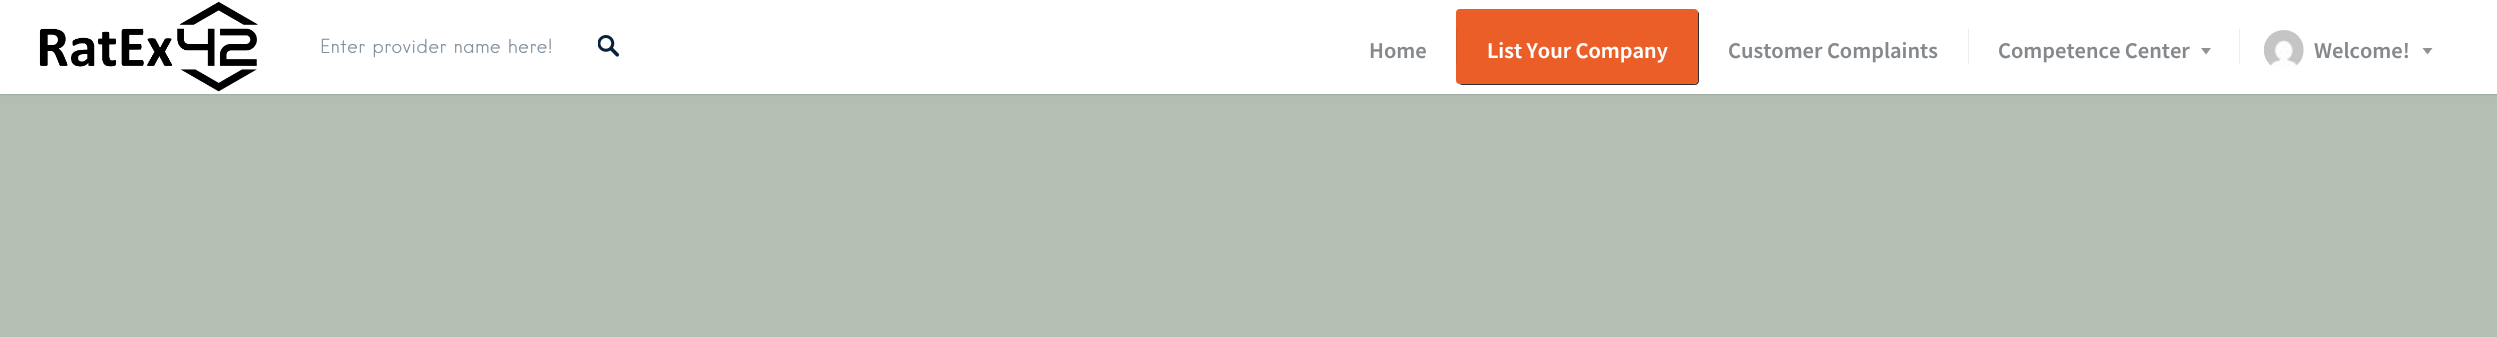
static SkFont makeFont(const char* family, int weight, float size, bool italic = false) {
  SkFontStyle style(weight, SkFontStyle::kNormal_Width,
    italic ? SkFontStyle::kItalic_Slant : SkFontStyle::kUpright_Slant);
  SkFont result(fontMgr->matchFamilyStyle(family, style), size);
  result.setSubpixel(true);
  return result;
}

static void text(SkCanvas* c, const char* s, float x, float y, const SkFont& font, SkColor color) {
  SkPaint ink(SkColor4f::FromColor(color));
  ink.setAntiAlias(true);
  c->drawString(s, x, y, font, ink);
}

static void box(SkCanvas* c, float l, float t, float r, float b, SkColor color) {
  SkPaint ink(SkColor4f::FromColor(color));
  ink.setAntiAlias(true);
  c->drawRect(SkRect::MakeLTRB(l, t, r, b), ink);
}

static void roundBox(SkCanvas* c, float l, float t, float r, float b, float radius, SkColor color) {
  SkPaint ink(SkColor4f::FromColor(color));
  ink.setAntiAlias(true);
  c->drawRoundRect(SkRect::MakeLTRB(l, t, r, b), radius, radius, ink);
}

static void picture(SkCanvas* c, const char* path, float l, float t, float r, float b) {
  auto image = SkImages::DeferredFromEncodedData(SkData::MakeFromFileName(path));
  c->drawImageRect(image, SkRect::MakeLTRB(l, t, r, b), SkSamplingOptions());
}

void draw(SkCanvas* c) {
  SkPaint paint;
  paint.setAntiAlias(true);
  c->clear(0xffb3bfb3);
  paint.setColor(0x40000000);
  paint.setMaskFilter(SkMaskFilter::MakeBlur(kNormal_SkBlurStyle, 1));
  c->drawRect(SkRect::MakeLTRB(0, 0, 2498, 94), paint);
  paint.setMaskFilter(nullptr);
  box(c, 0, 0, 2497, 94, 0xffffffff);
  picture(c, "img_01.png", 39, 1, 258, 92);
  SkFont face1 = makeFont("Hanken", 300, 18.75f);
  text(c, "Enter provider name here!", 320, 53, face1, 0xff83919d);
  picture(c, "img_02.png", 598, 35, 619, 57);
  SkFont face2 = makeFont("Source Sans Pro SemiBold", 600, 22.5f);
  text(c, "Home", 1369, 58, face2, 0xff85898c);
  paint.setColor(0xff2f2f2f);
  c->drawPath(SkPathBuilder().moveTo(1459, 84).cubicTo(1460, 84, 1461, 85, 1462, 85).lineTo(1695, 85).cubicTo(1697, 85, 1699, 83, 1699, 81).lineTo(1699, 13).lineTo(1697, 10).lineTo(1698, 12).lineTo(1698, 80).cubicTo(1698, 82, 1696, 84, 1694, 84).close().detach(), paint);
  roundBox(c, 1456, 9, 1698, 84, 4, 0xffeb5e28);
  box(c, 1456, 29, 1457, 64, 0xffd95725);
  text(c, "List Your Company", 1487, 58, face2, 0xffffffff);
  box(c, 1698, 29, 1699, 64, 0xff2b2b2b);
  text(c, "Customer Complaints", 1728, 58, face2, 0xff85898c);
  box(c, 1968, 29, 1969, 64, 0xffececec);
  text(c, "Competence Center", 1998, 58, face2, 0xff85898c);
  paint.setColor(0xff919191);
  c->drawPath(SkPathBuilder().moveTo(2201, 48).lineTo(2211, 48).lineTo(2206, 54.5f).close().detach(), paint);
  box(c, 2239, 29, 2240, 64, 0xffececec);
  picture(c, "img_03.png", 2264, 30, 2304, 67);
  text(c, "Welcome!", 2314, 58, face2, 0xff85898c);
  c->drawPath(SkPathBuilder().moveTo(2422.5f, 48).lineTo(2432.5f, 48).lineTo(2427.5f, 54.5f).close().detach(), paint);
}
